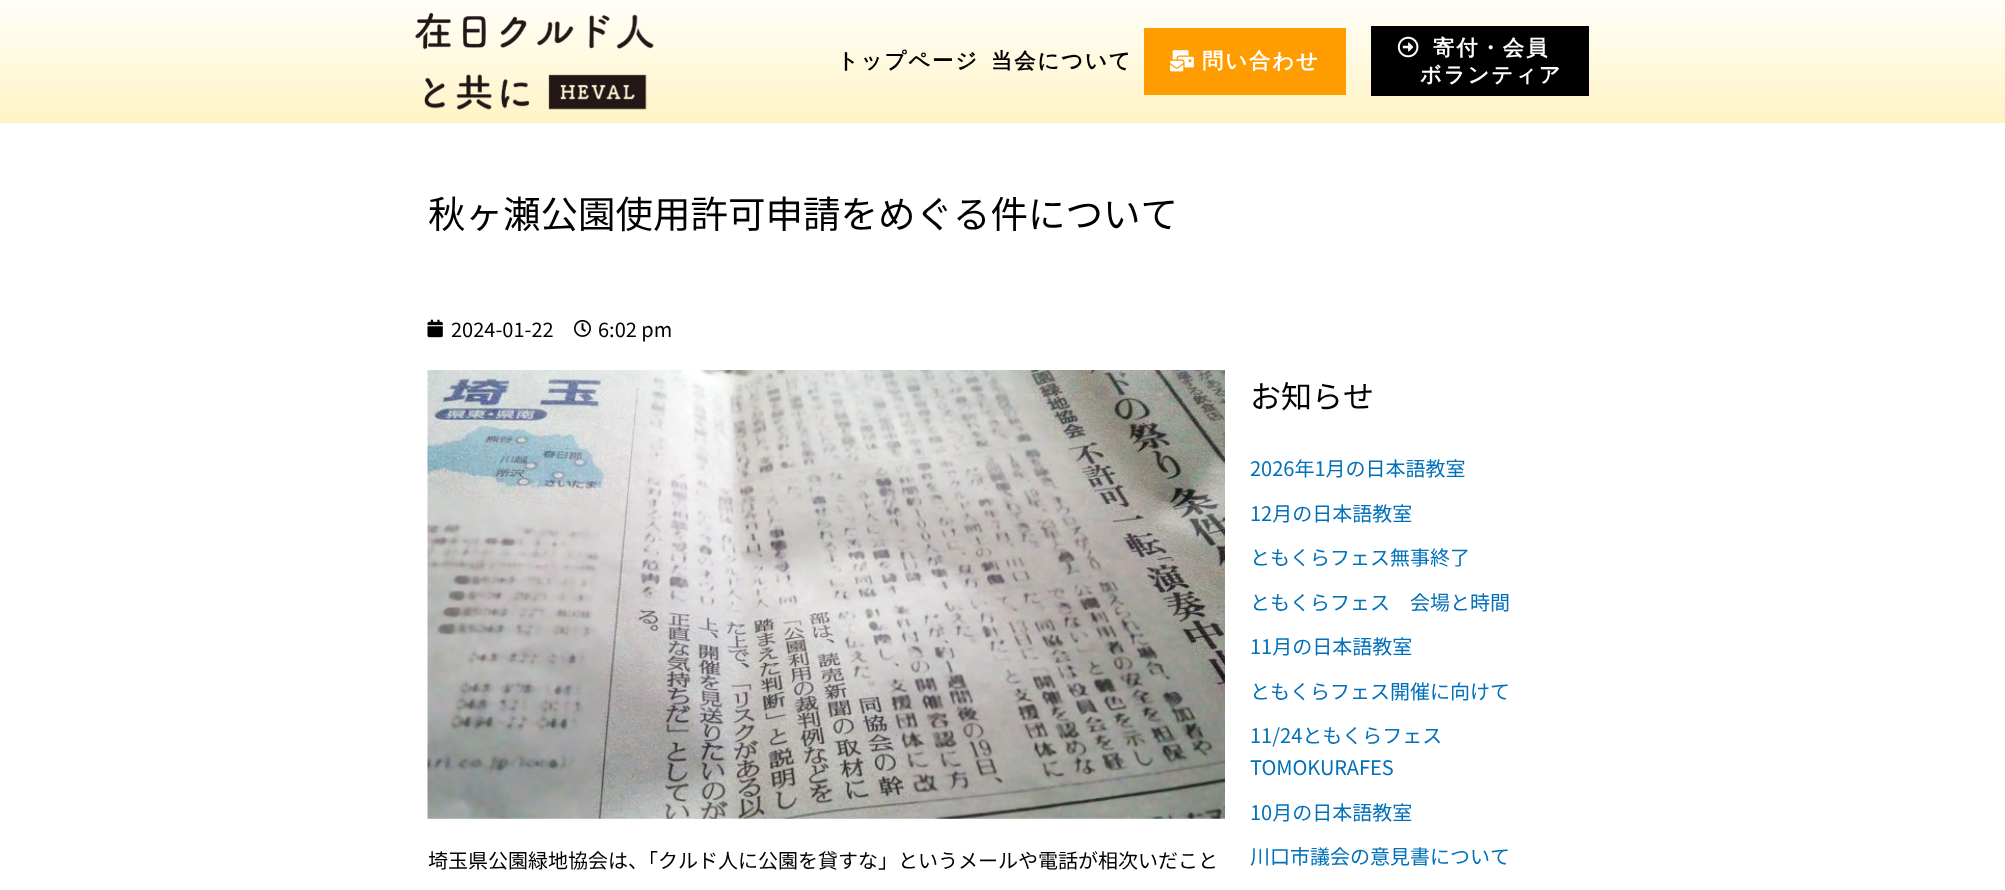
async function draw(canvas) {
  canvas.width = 2005;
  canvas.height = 890;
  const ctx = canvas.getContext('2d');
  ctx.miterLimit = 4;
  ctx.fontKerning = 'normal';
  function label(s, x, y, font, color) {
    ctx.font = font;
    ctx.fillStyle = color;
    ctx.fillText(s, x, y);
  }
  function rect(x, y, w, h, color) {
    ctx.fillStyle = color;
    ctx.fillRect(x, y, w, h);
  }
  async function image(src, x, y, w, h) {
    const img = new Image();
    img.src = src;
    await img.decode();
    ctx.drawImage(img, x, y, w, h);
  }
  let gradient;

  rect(0, 0, 2005, 890, '#fff');
  gradient = ctx.createLinearGradient(1003, 0, 1003, 123);
  gradient.addColorStop(0, '#fffff9');
  gradient.addColorStop(1, '#fff3c5');
  ctx.fillStyle = gradient;
  ctx.fillRect(0, 0, 2005, 123);
  await image('assets/img1.png', 415, 12, 239, 98);
  ctx.letterSpacing = '2px';
  label('トップページ', 837, 68, 'bold 21.25px WenQuanYi Zen Hei', '#000');
  label('当会について', 991, 68, 'bold 21.25px WenQuanYi Zen Hei', '#000');
  rect(1144, 28, 202, 67, '#ff9c00');
  await image('assets/img2.png', 1170, 50, 24, 22);
  label('問い合わせ', 1202, 68, 'bold 21.25px WenQuanYi Zen Hei', '#fff');
  rect(1371, 26, 218, 70, '#000');
  await image('assets/img3.png', 1397, 36, 22, 22);
  label('寄付・会員', 1433, 55, 'bold 21.25px WenQuanYi Zen Hei', '#fff');
  label('ボランティア', 1420, 82, 'bold 21.25px WenQuanYi Zen Hei', '#fff');
  ctx.letterSpacing = '0px';
  label('秋ヶ瀬公園使用許可申請をめぐる件について', 428, 228, '100 37.5px Noto Sans JP', '#000');
  await image('assets/img4.png', 427, 319, 16, 19);
  label('2024-01-22', 451, 337, '100 20px Noto Sans JP', '#000');
  await image('assets/img5.png', 574, 320, 17, 17);
  label('6:02 pm', 598, 337, '100 20px Noto Sans JP', '#000');
  await image('assets/img6.png', 427, 370, 798, 449);
  label('埼玉県公園緑地協会は、「クルド人に公園を貸すな」というメールや電話が相次いだこと', 428, 868, '100 20px Noto Sans JP', '#000');
  label('お知らせ', 1250, 408, '100 31px Noto Sans JP', '#000');
  label('2026年1月の日本語教室', 1250, 476, '100 20px Noto Sans JP', '#0170b9');
  label('12月の日本語教室', 1250, 521, '100 20px Noto Sans JP', '#0170b9');
  label('ともくらフェス無事終了', 1250, 565, '100 20px Noto Sans JP', '#0170b9');
  label('ともくらフェス　会場と時間', 1250, 610, '100 20px Noto Sans JP', '#0170b9');
  label('11月の日本語教室', 1250, 654, '100 20px Noto Sans JP', '#0170b9');
  label('ともくらフェス開催に向けて', 1250, 699, '100 20px Noto Sans JP', '#0170b9');
  label('11/24ともくらフェス', 1250, 743, '100 20px Noto Sans JP', '#0170b9');
  label('TOMOKURAFES', 1250, 775, '100 20px Noto Sans JP', '#0170b9');
  label('10月の日本語教室', 1250, 820, '100 20px Noto Sans JP', '#0170b9');
  label('川口市議会の意見書について', 1250, 864, '100 20px Noto Sans JP', '#0170b9');
}

draw(document.querySelector('canvas'));
